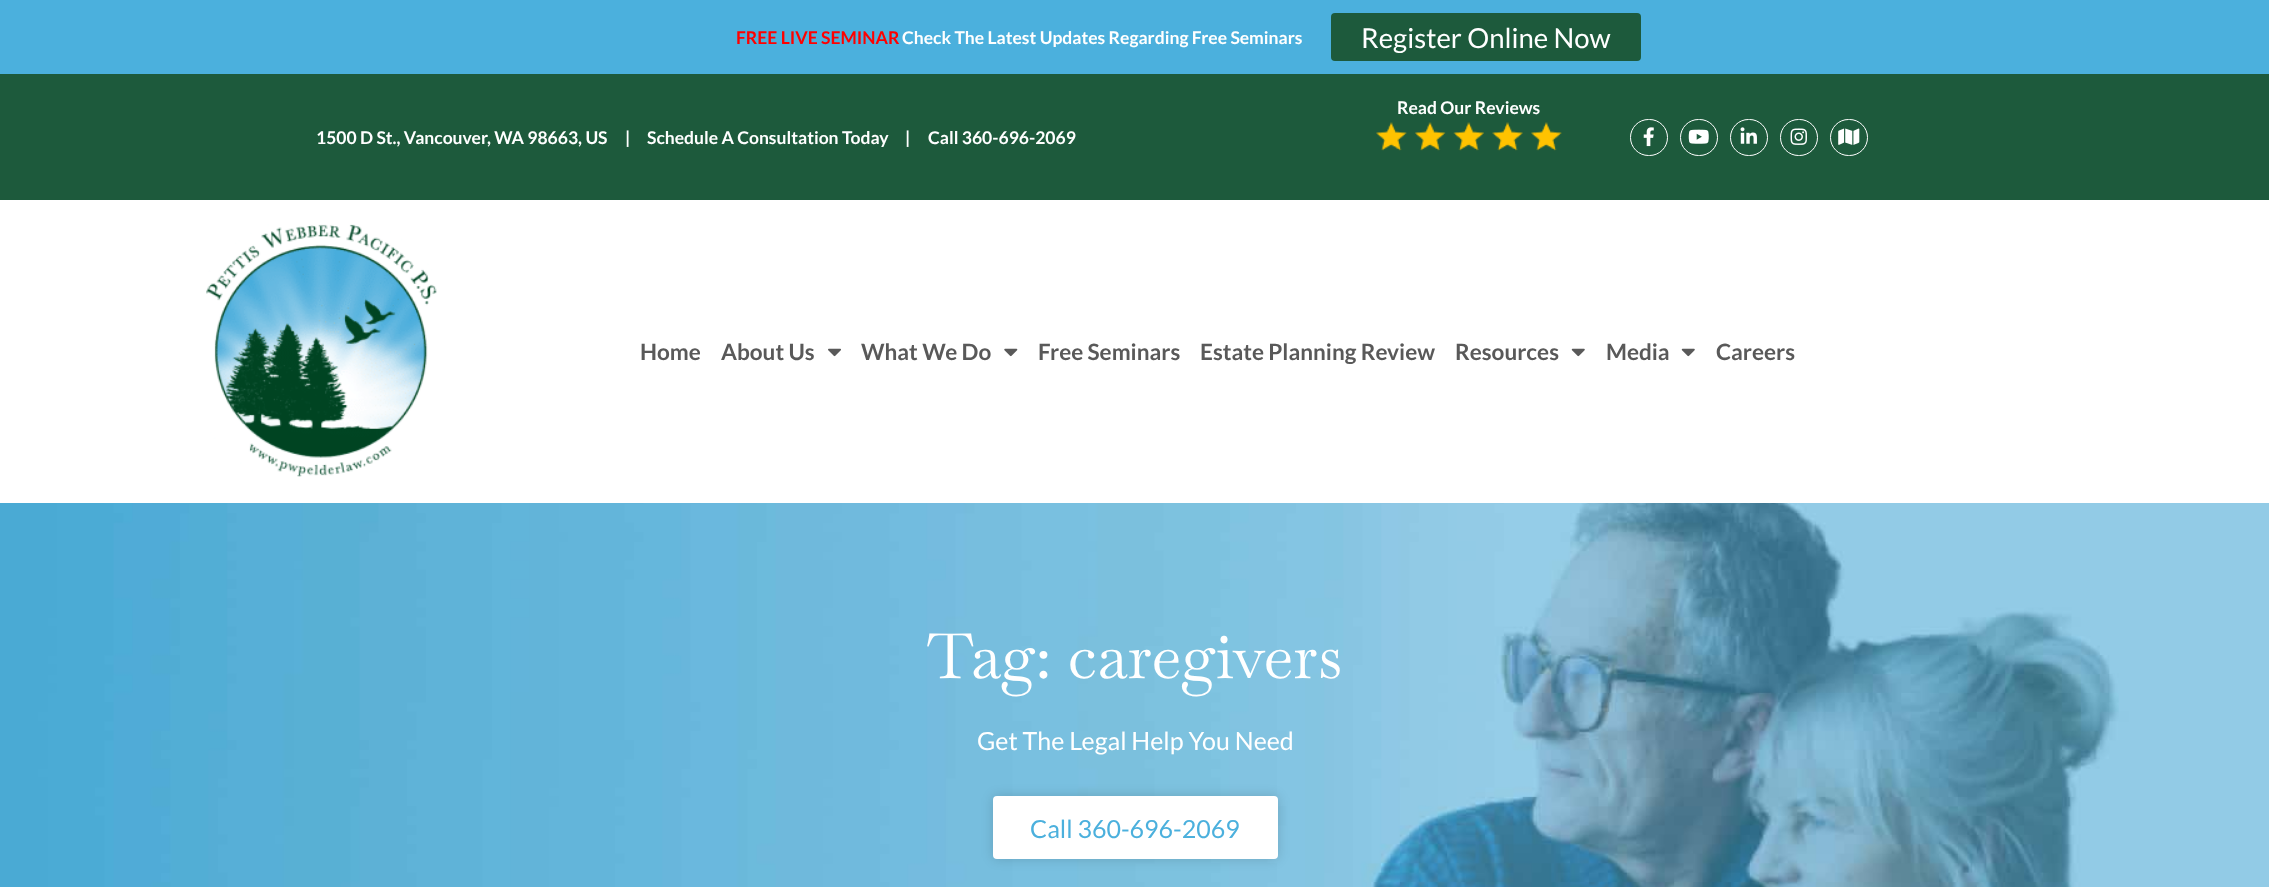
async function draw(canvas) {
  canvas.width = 2269;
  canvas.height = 887;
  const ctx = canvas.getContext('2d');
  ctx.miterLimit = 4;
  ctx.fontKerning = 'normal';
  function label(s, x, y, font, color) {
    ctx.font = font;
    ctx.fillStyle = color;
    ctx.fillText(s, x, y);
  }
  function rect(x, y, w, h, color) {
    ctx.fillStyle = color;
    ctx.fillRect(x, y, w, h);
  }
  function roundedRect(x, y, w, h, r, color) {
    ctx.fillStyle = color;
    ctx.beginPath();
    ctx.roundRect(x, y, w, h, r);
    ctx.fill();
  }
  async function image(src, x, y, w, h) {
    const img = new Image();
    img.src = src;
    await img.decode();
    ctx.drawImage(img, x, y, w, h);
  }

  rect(0, 0, 2269, 887, '#4bb0dd');
  label('FREE LIVE SEMINAR', 736, 44, 'bold 17.5px Lato', '#f00');
  label('Check The Latest Updates Regarding Free Seminars', 902, 44, 'bold 17.5px Lato', '#fff');
  roundedRect(1331, 13, 310, 48, 4, '#1d5a3c');
  label('Register Online Now', 1361, 48, '27.5px Lato', '#fff');
  rect(0, 74, 2269, 126, '#1d5a3c');
  label('Read Our Reviews', 1397, 114, 'bold 17.5px Lato', '#fff');
  await image('assets/img1.png', 1376, 122, 186, 29);
  ctx.beginPath();
  ctx.roundRect(1630.5, 119.5, 37, 36, 18);
  ctx.strokeStyle = '#fff';
  ctx.stroke();
  await image('assets/img2.png', 1643, 127, 11, 20);
  ctx.beginPath();
  ctx.roundRect(1680.5, 119.5, 37, 36, 18);
  ctx.stroke();
  await image('assets/img3.png', 1688, 129, 21, 15);
  ctx.beginPath();
  ctx.roundRect(1730.5, 119.5, 37, 36, 18);
  ctx.stroke();
  await image('assets/img4.png', 1740, 127, 17, 17);
  ctx.beginPath();
  ctx.roundRect(1780.5, 119.5, 37, 36, 18);
  ctx.stroke();
  await image('assets/img5.png', 1790, 128, 17, 17);
  ctx.beginPath();
  ctx.roundRect(1830.5, 119.5, 37, 36, 18);
  ctx.stroke();
  await image('assets/img6.png', 1838, 128, 22, 17);
  label('1500 D St., Vancouver, WA 98663, US', 316, 144, 'bold 17.5px Lato', '#fff');
  label('|', 625, 144, 'bold 17.5px Lato', '#fff');
  label('Schedule A Consultation Today', 647, 144, 'bold 17.5px Lato', '#fff');
  label('|', 905, 144, 'bold 17.5px Lato', '#fff');
  label('Call 360-696-2069', 928, 144, 'bold 17.5px Lato', '#fff');
  rect(0, 200, 2269, 303, '#fff');
  await image('assets/img7.png', 206, 224, 231, 253);
  label('Home', 640, 360, 'bold 22.5px Lato', '#595959');
  label('About Us', 721, 360, 'bold 22.5px Lato', '#595959');
  await image('assets/img8.png', 828, 348, 13, 9);
  label('What We Do', 861, 360, 'bold 22.5px Lato', '#595959');
  await image('assets/img9.png', 1004, 348, 14, 9);
  label('Free Seminars', 1038, 360, 'bold 22.5px Lato', '#595959');
  label('Estate Planning Review', 1200, 360, 'bold 22.5px Lato', '#595959');
  label('Resources', 1455, 360, 'bold 22.5px Lato', '#595959');
  await image('assets/img10.png', 1571, 348, 14, 9);
  label('Media', 1606, 360, 'bold 22.5px Lato', '#595959');
  await image('assets/img10.png', 1681, 348, 14, 9);
  label('Careers', 1716, 360, 'bold 22.5px Lato', '#595959');
  await image('assets/img11.png', 0, 503, 2269, 384);
  label('Tag: caregivers', 927, 678, '62.5px Baskervville', '#fff');
  label('Get The Legal Help You Need', 977, 750, '25px Lato', '#fff');
  ctx.fillStyle = '#00000026';
  ctx.filter = 'blur(6px)';
  ctx.beginPath();
  ctx.roundRect(993, 796, 285, 63, 4);
  ctx.fill();
  ctx.filter = 'none';
  roundedRect(993, 796, 285, 63, 4, '#fff');
  label('Call 360-696-2069', 1030, 838, '25px Lato', '#4bb0dd');
}

draw(document.querySelector('canvas'));
